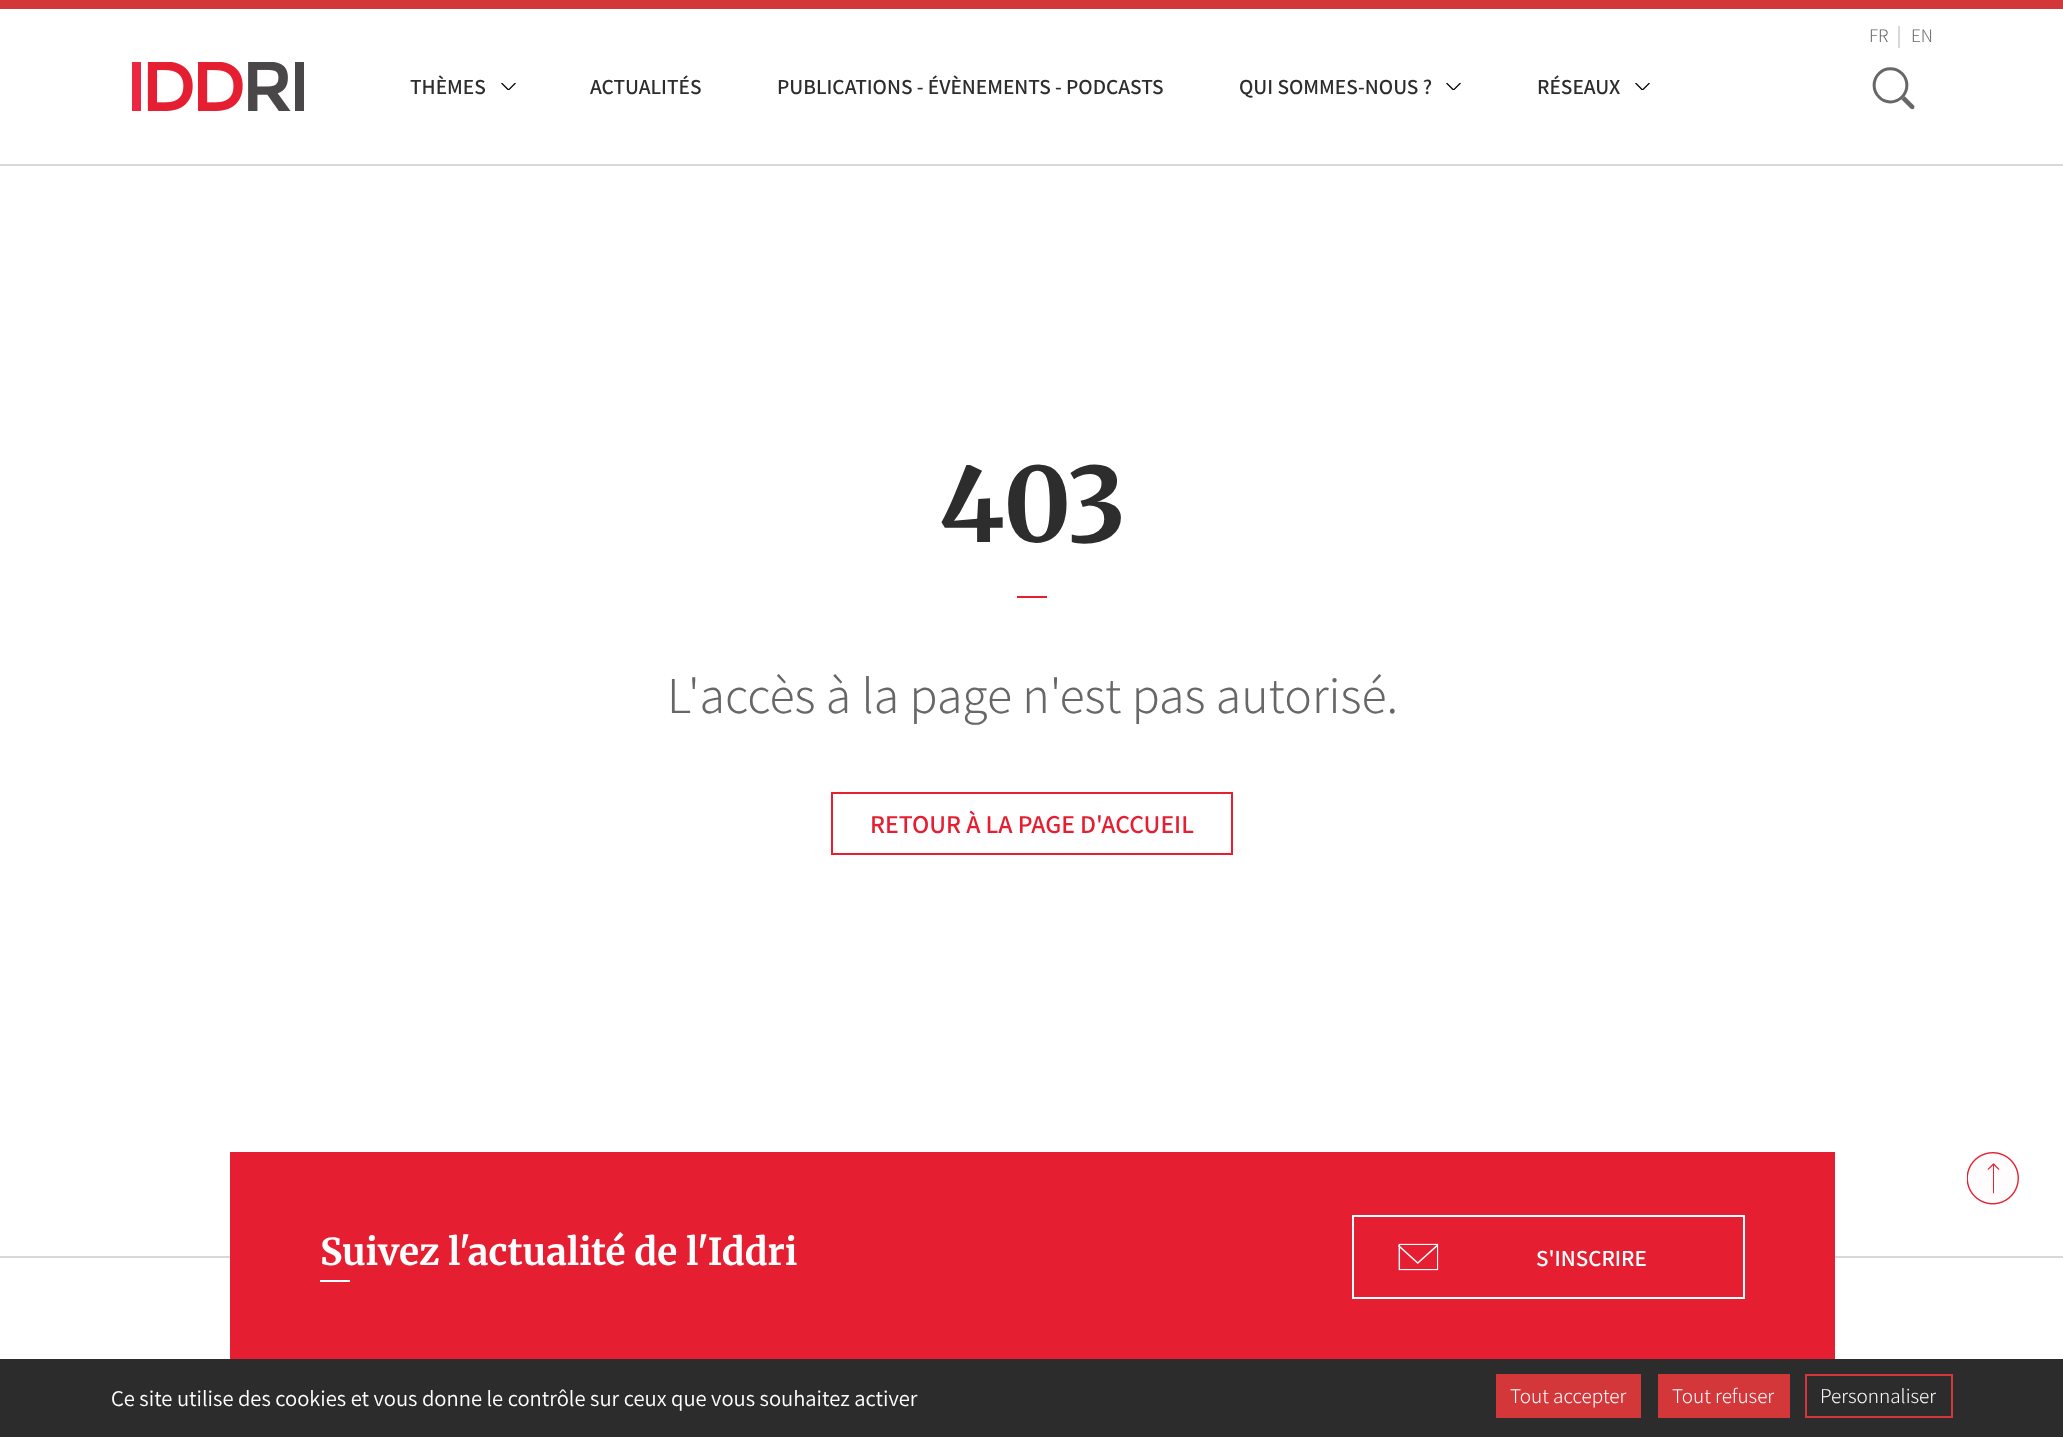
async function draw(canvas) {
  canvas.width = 2063;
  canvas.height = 1437;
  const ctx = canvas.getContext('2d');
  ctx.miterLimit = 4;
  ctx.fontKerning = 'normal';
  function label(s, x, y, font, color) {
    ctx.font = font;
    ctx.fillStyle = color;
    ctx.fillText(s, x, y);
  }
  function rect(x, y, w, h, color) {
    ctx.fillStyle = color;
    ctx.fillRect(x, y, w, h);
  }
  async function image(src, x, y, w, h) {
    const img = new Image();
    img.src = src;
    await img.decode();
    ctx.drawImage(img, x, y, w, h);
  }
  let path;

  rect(0, 0, 2063, 1437, '#fff');
  rect(0, 0, 2063, 9, '#d2373a');
  rect(0, 164, 2063, 2, '#d8d8d8');
  await image('assets/img1.png', 132, 62, 172, 49);
  label('FR', 1869, 42, '300 19px Assistant', '#676767');
  rect(1898, 26, 2, 22, '#d8d8d8');
  label('EN', 1911, 42, '300 19px Assistant', '#676767');
  await image('assets/img2.png', 501, 83, 15, 7);
  label('THÈMES', 410, 94, '600 21.4px Assistant', '#2d2d2d');
  label('ACTUALITÉS', 590, 94, '600 21.4px Assistant', '#2d2d2d');
  label('PUBLICATIONS - ÉVÈNEMENTS - PODCASTS', 777, 94, '600 21.4px Assistant', '#2d2d2d');
  await image('assets/img2.png', 1446, 83, 15, 7);
  label('QUI SOMMES-NOUS ?', 1239, 94, '600 21.4px Assistant', '#2d2d2d');
  await image('assets/img2.png', 1635, 83, 15, 7);
  label('RÉSEAUX', 1537, 94, '600 21.4px Assistant', '#2d2d2d');
  ctx.fillStyle = '#676767';
  path = new Path2D('M1886 84L1910.5 108.5C1911.5 109.5 1913 109.5 1914 108.5C1914.5 107.5 1914.5 106 1914 105.5L1889.5 81C1888.5 80 1887 80 1886 81C1885.5 82 1885.5 83.5 1886 84Z');
  ctx.fill(path);
  ctx.fillStyle = '#fff';
  path = new Path2D('M1877.5 98C1884.5 105 1896 105 1903 98C1910 91 1910 79.5 1903 72.5C1896 65.5 1884.5 65.5 1877.5 72.5C1870.5 79.5 1870.5 91 1877.5 98Z');
  ctx.fill(path);
  path = new Path2D('M1879 97C1885 103.5 1895.5 103.5 1902 97C1908.5 90.5 1908.5 80 1902 73.5C1895.5 67 1885 67 1879 73.5C1872.5 80 1872.5 90.5 1879 97Z');
  ctx.strokeStyle = '#676767';
  ctx.lineWidth = 3;
  ctx.stroke(path);
  label('403', 939, 542, '300 103px Merriweather', '#2d2d2d');
  rect(1017, 596, 30, 2, '#e51e31');
  label('L\'accès à la page n\'est pas autorisé.', 667, 713, '300 51.5px Assistant', '#676767');
  ctx.strokeStyle = '#e51e31';
  ctx.lineWidth = 2;
  ctx.strokeRect(832, 793, 400, 61);
  label('RETOUR À LA PAGE D\'ACCUEIL', 870, 833, '600 25.75px Assistant', '#e51e31');
  rect(0, 1256, 2063, 2, '#d8d8d8');
  await image('assets/img3.png', 1967, 1152, 52, 53);
  rect(230, 1152, 1605, 207, '#e51e31');
  label('Suivez l\'actualité de l\'Iddri', 320, 1265, '300 37.1px Merriweather', '#fff');
  rect(320, 1280, 30, 2, '#fff');
  ctx.strokeStyle = '#fff';
  ctx.strokeRect(1353, 1216, 391, 82);
  await image('assets/img4.png', 1398, 1243, 41, 28);
  label('S\'INSCRIRE', 1536, 1266, '600 23px Assistant', '#fff');
  rect(0, 1359, 2063, 78, '#2c2c2c');
  label('Ce site utilise des cookies et vous donne le contrôle sur ceux que vous souhaitez activer', 111, 1406, '22.5px Assistant', '#fff');
  rect(1496, 1374, 145, 44, '#d3373a');
  label('Tout accepter', 1510, 1403, '300 21px Assistant', '#fff');
  rect(1658, 1374, 132, 44, '#d3373a');
  label('Tout refuser', 1672, 1403, '300 21px Assistant', '#fff');
  ctx.strokeStyle = '#d3373a';
  ctx.strokeRect(1806, 1375, 146, 42);
  label('Personnaliser', 1820, 1403, '300 21px Assistant', '#fff');
}

draw(document.querySelector('canvas'));
